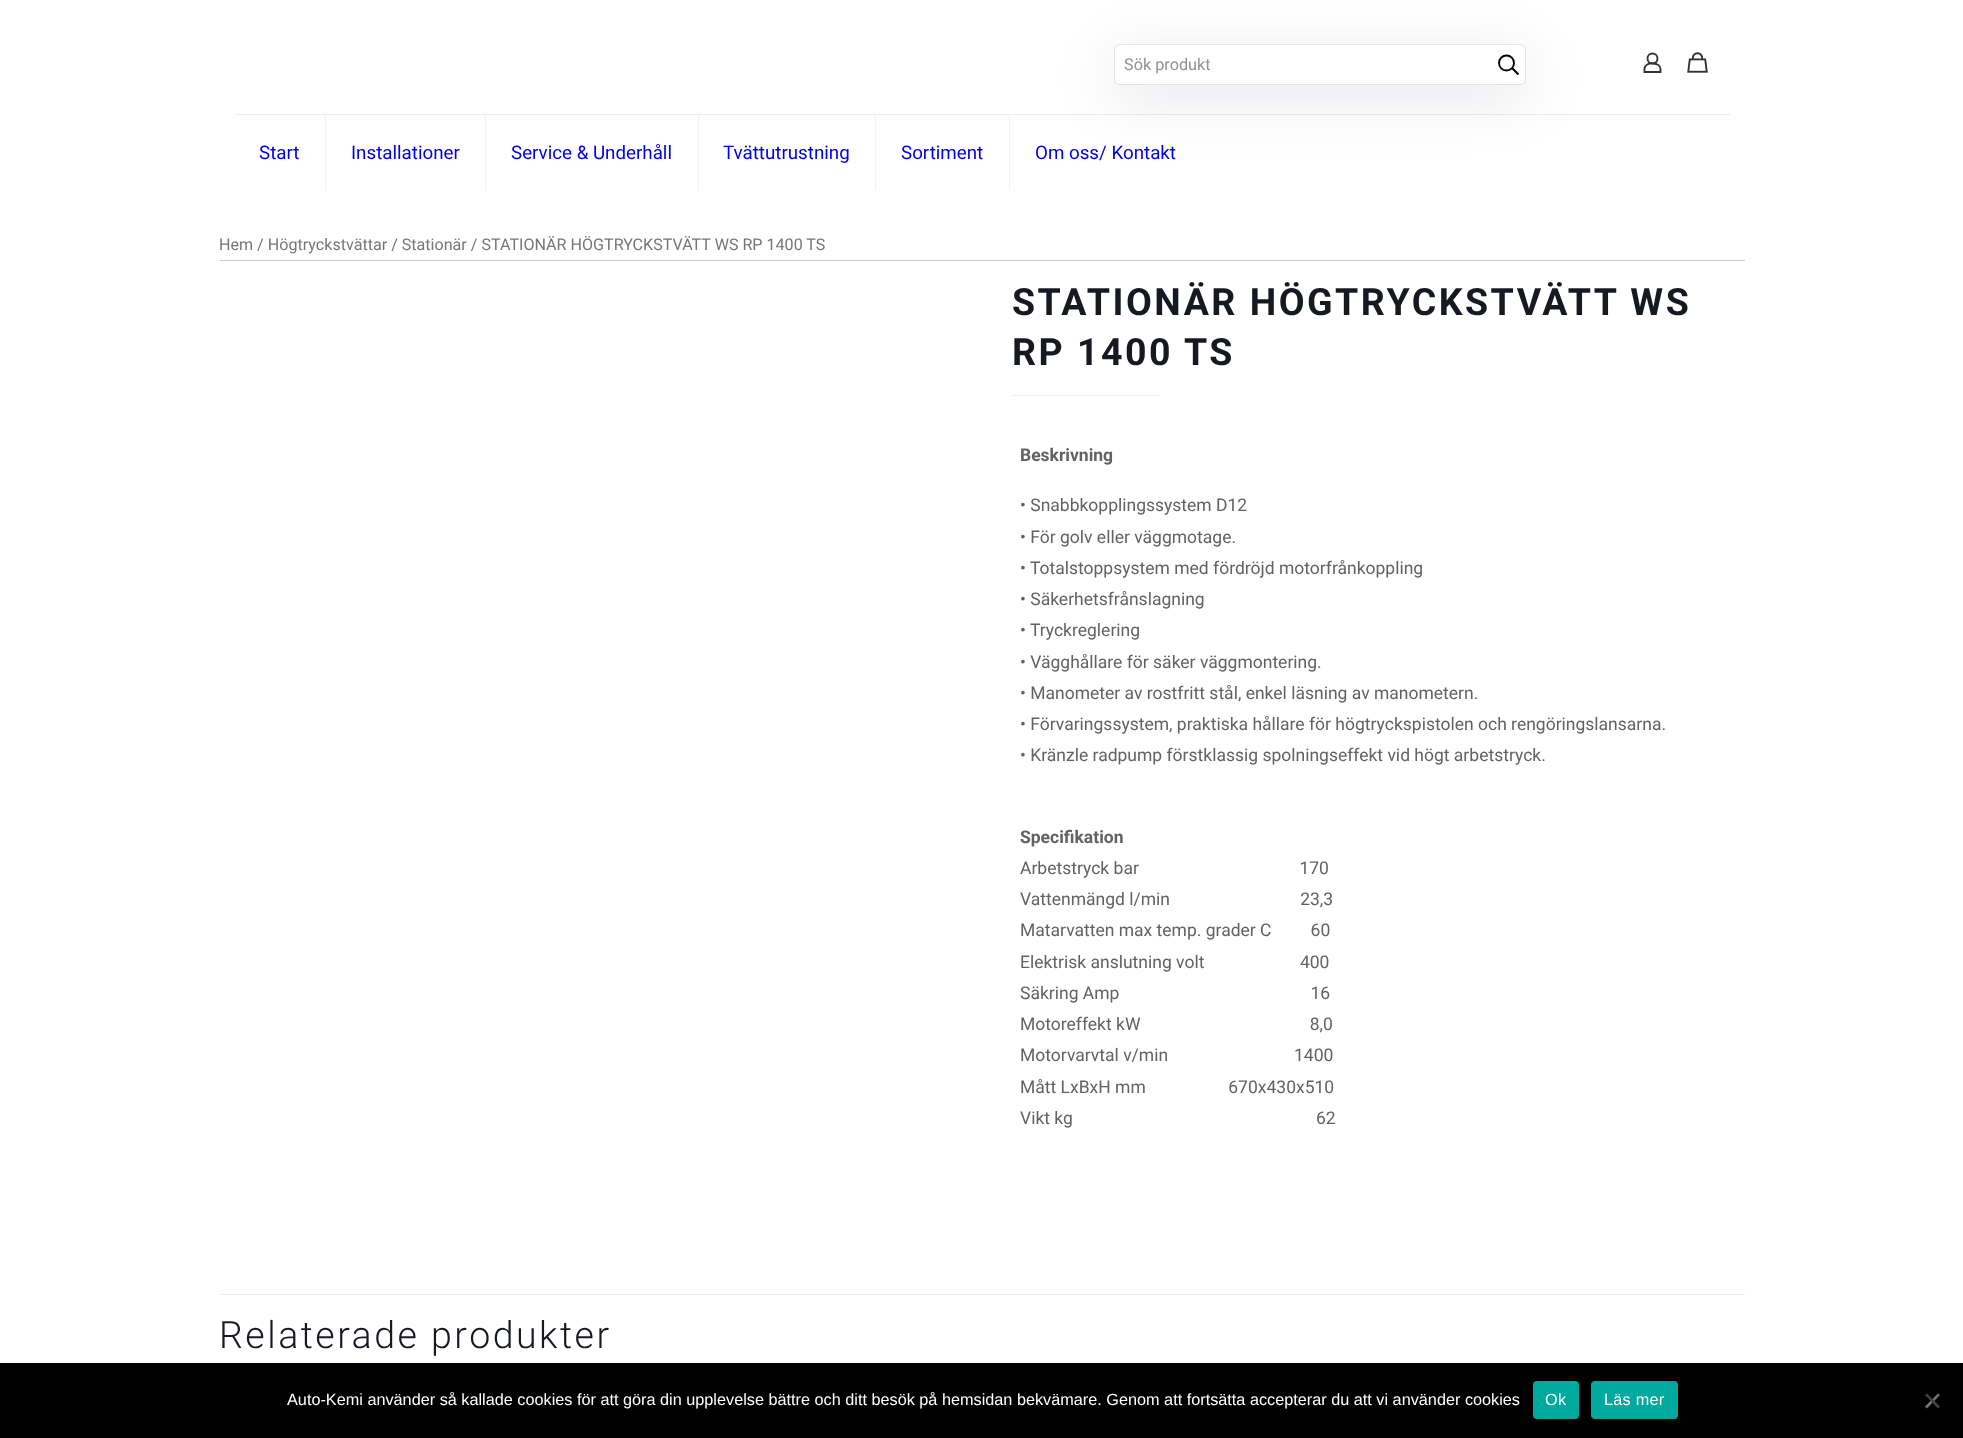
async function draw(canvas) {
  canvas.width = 1963;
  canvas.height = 1438;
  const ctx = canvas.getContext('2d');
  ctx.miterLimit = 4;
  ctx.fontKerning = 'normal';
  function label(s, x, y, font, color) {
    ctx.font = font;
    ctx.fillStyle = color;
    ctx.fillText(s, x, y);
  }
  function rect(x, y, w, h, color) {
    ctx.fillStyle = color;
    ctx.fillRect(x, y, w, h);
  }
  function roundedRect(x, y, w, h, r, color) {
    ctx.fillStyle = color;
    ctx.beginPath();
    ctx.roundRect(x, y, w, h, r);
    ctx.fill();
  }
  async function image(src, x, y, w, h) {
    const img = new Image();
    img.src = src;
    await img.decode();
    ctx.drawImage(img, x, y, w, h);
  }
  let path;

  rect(0, 0, 1963, 1438, '#fff');
  rect(235, 114, 1495, 1, '#ebebeb');
  ctx.save();
  path = new Path2D('M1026 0H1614V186H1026ZM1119 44H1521C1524 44 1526 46 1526 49V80C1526 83 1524 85 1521 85H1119C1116 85 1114 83 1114 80V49C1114 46 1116 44 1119 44Z');
  ctx.clip(path, 'evenodd');
  ctx.fillStyle = '#0107271a';
  ctx.filter = 'blur(29px)';
  ctx.beginPath();
  ctx.roundRect(1114, 56, 412, 42, 5);
  ctx.fill();
  ctx.filter = 'none';
  ctx.restore();
  ctx.beginPath();
  ctx.roundRect(1114.5, 44.5, 411, 40, 4.5);
  ctx.strokeStyle = '#e4e4e4';
  ctx.stroke();
  label('Sök produkt', 1124, 70, '16.25px Roboto', '#929292');
  ctx.beginPath();
  ctx.arc(1506.5, 63, 7.5, 0, 2 * Math.PI);
  ctx.strokeStyle = '#000';
  ctx.lineWidth = 1.9;
  ctx.stroke();
  path = new Path2D('M1512 68L1518.5 74.5');
  ctx.stroke(path);
  ctx.beginPath();
  ctx.arc(1652.5, 58.5, 5, 0, 2 * Math.PI);
  ctx.strokeStyle = '#333';
  ctx.stroke();
  path = new Path2D('M1660.5 69V72H1644.5V68C1646.5 61.5 1660.5 62 1660.5 69Z');
  ctx.stroke(path);
  await image('assets/img1.png', 1687, 52, 21, 21);
  rect(325, 115, 1, 75, '#f2f2f2');
  label('Start', 259, 159, '18.75px Roboto', '#00e');
  rect(485, 115, 1, 75, '#f2f2f2');
  label('Installationer', 351, 159, '18.75px Roboto', '#00e');
  rect(698, 115, 1, 75, '#f2f2f2');
  label('Service & Underhåll', 511, 159, '18.75px Roboto', '#00e');
  rect(875, 115, 1, 75, '#f2f2f2');
  label('Tvättutrustning', 723, 159, '18.75px Roboto', '#00e');
  rect(1009, 115, 1, 75, '#f2f2f2');
  label('Sortiment', 901, 159, '18.75px Roboto', '#00e');
  label('Om oss/ Kontakt', 1035, 159, '18.75px Roboto', '#00e');
  rect(220, 260, 1525, 1, '#ccc');
  label('Hem / Högtryckstvättar / Stationär / STATIONÄR HÖGTRYCKSTVÄTT WS RP 1400 TS', 219, 250, '16.1px Roboto', '#767676');
  ctx.letterSpacing = '2.5px';
  label('STATIONÄR HÖGTRYCKSTVÄTT WS', 1012, 315, 'bold 37.5px Roboto', '#161922');
  label('RP 1400 TS', 1012, 365, 'bold 37.5px Roboto', '#161922');
  rect(1013, 395, 146, 1, '#ebebeb');
  ctx.letterSpacing = '0px';
  label('Beskrivning', 1020, 461, 'bold 17.5px Roboto', '#626262');
  label('• Snabbkopplingssystem D12', 1020, 511, '17.5px Roboto', '#626262');
  label('• För golv eller väggmotage.', 1020, 543, '17.5px Roboto', '#626262');
  label('• Totalstoppsystem med fördröjd motorfrånkoppling', 1020, 574, '17.5px Roboto', '#626262');
  label('• Säkerhetsfrånslagning', 1020, 605, '17.5px Roboto', '#626262');
  label('• Tryckreglering', 1020, 636, '17.5px Roboto', '#626262');
  label('• Vägghållare för säker väggmontering.', 1020, 668, '17.5px Roboto', '#626262');
  label('• Manometer av rostfritt stål, enkel läsning av manometern.', 1020, 699, '17.5px Roboto', '#626262');
  label('• Förvaringssystem, praktiska hållare för högtryckspistolen och rengöringslansarna.', 1020, 730, '17.5px Roboto', '#626262');
  label('• Kränzle radpump förstklassig spolningseffekt vid högt arbetstryck.', 1020, 761, '17.5px Roboto', '#626262');
  label('Specifikation', 1020, 843, 'bold 17.5px Roboto', '#626262');
  label('Arbetstryck bar                                     170', 1020, 874, '17.5px Roboto', '#626262');
  label('Vattenmängd l/min                              23,3', 1020, 905, '17.5px Roboto', '#626262');
  label('Matarvatten max temp. grader C         60', 1020, 936, '17.5px Roboto', '#626262');
  label('Elektrisk anslutning volt                      400', 1020, 968, '17.5px Roboto', '#626262');
  label('Säkring Amp                                            16', 1020, 999, '17.5px Roboto', '#626262');
  label('Motoreffekt kW                                       8,0', 1020, 1030, '17.5px Roboto', '#626262');
  label('Motorvarvtal v/min                             1400', 1020, 1061, '17.5px Roboto', '#626262');
  label('Mått LxBxH mm                   670x430x510', 1020, 1093, '17.5px Roboto', '#626262');
  label('Vikt kg                                                        62', 1020, 1124, '17.5px Roboto', '#626262');
  rect(220, 1294, 1525, 1, '#ebebeb');
  ctx.letterSpacing = '2.5px';
  label('Relaterade produkter', 219, 1348, '300 37.5px Roboto', '#161922');
  rect(0, 1363, 1963, 75, '#000');
  ctx.letterSpacing = '0px';
  label('Auto-Kemi använder så kallade cookies för att göra din upplevelse bättre och ditt besök på hemsidan bekvämare. Genom att fortsätta accepterar du att vi använder cookies', 287, 1405, '16.25px Liberation Sans', '#fff');
  roundedRect(1533, 1381, 46, 38, 4, '#00a99d');
  ctx.letterSpacing = '0.25px';
  label('Ok', 1545, 1405, '16.25px Liberation Sans', '#fff');
  roundedRect(1591, 1381, 87, 38, 4, '#00a99d');
  label('Läs mer', 1604, 1405, '16.25px Liberation Sans', '#fff');
  ctx.fillStyle = '#757575';
  path = new Path2D('M1938 1393.5L1940 1395L1927 1408.5L1925 1406.5Z');
  ctx.fill(path);
  ctx.fillStyle = '#404040';
  path = new Path2D('M1925 1395L1927 1393.5L1940 1406.5L1938 1408.5Z');
  ctx.fill(path);
}

draw(document.querySelector('canvas'));
